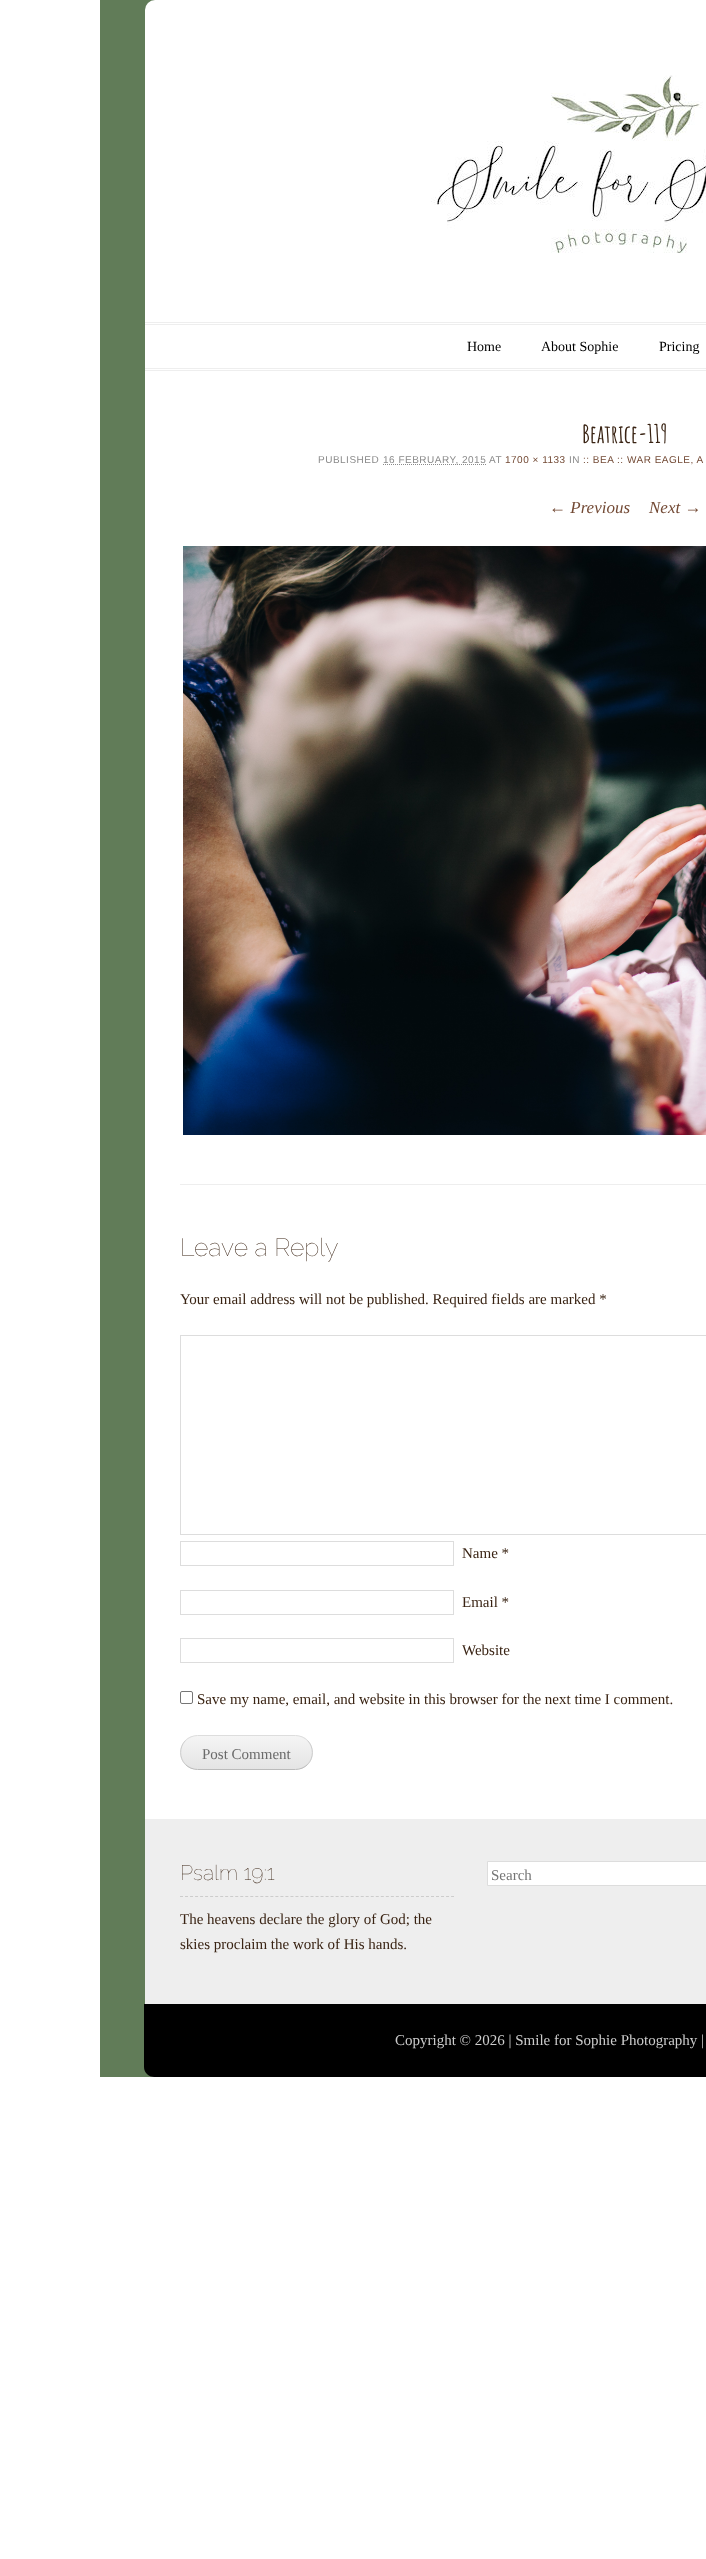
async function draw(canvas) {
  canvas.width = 706;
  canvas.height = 2559;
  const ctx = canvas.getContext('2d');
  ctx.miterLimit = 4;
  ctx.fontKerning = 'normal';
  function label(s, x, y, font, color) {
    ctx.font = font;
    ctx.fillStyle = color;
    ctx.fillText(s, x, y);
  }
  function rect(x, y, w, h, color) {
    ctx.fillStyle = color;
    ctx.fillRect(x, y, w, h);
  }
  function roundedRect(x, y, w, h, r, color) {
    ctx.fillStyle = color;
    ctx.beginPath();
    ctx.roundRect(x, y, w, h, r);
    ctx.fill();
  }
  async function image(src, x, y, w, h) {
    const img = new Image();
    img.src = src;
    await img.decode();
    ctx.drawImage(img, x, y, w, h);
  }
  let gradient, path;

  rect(0, 0, 706, 2559, '#fff');
  rect(100, 0, 55, 2077, '#617c58');
  roundedRect(145, 0, 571, 2077, 10, '#fff');
  await image('assets/img1.png', 431, 75, 275, 178);
  rect(145, 322, 561, 1, '#eee');
  rect(145, 324, 561, 1, '#eee');
  rect(145, 368, 561, 1, '#eee');
  rect(145, 370, 561, 1, '#eee');
  label('Home', 467, 351, '14px Liberation Serif', '#000');
  label('About Sophie', 541, 351, '14px Liberation Serif', '#000');
  label('Pricing', 659, 351, '14px Liberation Serif', '#000');
  rect(145, 1819, 561, 185, '#eee');
  label('Beatrice-119', 582, 443, 'bold 25px Amatic SC', '#392313');
  ctx.letterSpacing = '0.5px';
  label('PUBLISHED', 318, 463, '10px Liberation Sans', '#8a8a8a');
  path = new Path2D('M383 464.5H486');
  ctx.strokeStyle = '#8a8a8a';
  ctx.setLineDash([1, 1]);
  ctx.stroke(path);
  label('16 FEBRUARY, 2015', 383, 463, '10px Liberation Sans', '#8a8a8a');
  label('AT', 489, 463, '10px Liberation Sans', '#8a8a8a');
  label('1700 × 1133', 505, 463, '10px Liberation Sans', '#734a35');
  label('IN', 569, 463, '10px Liberation Sans', '#8a8a8a');
  label(':: BEA :: WAR EAGLE, A', 583, 463, '10px Liberation Sans', '#734a35');
  ctx.letterSpacing = '0px';
  label('← Previous', 549, 513, 'italic 17px Liberation Serif', '#734a35');
  label('Next →', 649, 513, 'italic 17px Liberation Serif', '#734a35');
  await image('assets/img2.png', 183, 546, 523, 589);
  rect(180, 1184, 526, 1, '#eee');
  label('Leave a Reply', 180, 1256, '100 25px Raleway', '#392313');
  label('Your email address will not be published. Required fields are marked *', 180, 1304, '15px Liberation Serif', '#392313');
  ctx.strokeStyle = '#ddd';
  ctx.setLineDash([]);
  ctx.strokeRect(180.5, 1335.5, 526, 199);
  ctx.strokeRect(180.5, 1541.5, 273, 24);
  label('Name *', 462, 1558, '15px Liberation Serif', '#392313');
  ctx.strokeRect(180.5, 1590.5, 273, 24);
  label('Email *', 462, 1607, '15px Liberation Serif', '#392313');
  ctx.strokeRect(180.5, 1638.5, 273, 24);
  label('Website', 462, 1655, '15px Liberation Serif', '#392313');
  ctx.beginPath();
  ctx.roundRect(180.5, 1691.5, 12, 12, 1.5);
  ctx.strokeStyle = '#767676';
  ctx.stroke();
  label('Save my name, email, and website in this browser for the next time I comment.', 197, 1704, '15px Liberation Serif', '#392313');
  ctx.save();
  ctx.beginPath();
  ctx.roundRect(180, 1735, 133, 35, 17.5);
  ctx.clip();
  gradient = ctx.createLinearGradient(247, 1736, 247, 1769);
  gradient.addColorStop(0, '#f5f5f5');
  gradient.addColorStop(1, '#e4e4e4');
  ctx.fillStyle = gradient;
  ctx.fillRect(180, 1736, 133, 33);
  ctx.restore();
  path = new Path2D('M185.5 1740.5C188.5 1737.5 193 1735.5 197.5 1735.5H295.5C300 1735.5 304.5 1737.5 307.5 1740.5');
  ctx.strokeStyle = '#ddd';
  ctx.stroke(path);
  path = new Path2D('M307.5 1740.5C314 1747 314 1758 307.5 1764.5');
  ctx.strokeStyle = '#ccc';
  ctx.stroke(path);
  path = new Path2D('M307.5 1764.5C304.5 1767.5 300 1769.5 295.5 1769.5H197.5C193 1769.5 188.5 1767.5 185.5 1764.5');
  ctx.strokeStyle = '#bbb';
  ctx.stroke(path);
  path = new Path2D('M185.5 1764.5C179 1758 179 1747 185.5 1740.5');
  ctx.strokeStyle = '#ccc';
  ctx.stroke(path);
  label('Post Comment', 202, 1759, '15px Liberation Serif', '#6a6a6a');
  path = new Path2D('M180 1896.5H454');
  ctx.setLineDash([3, 2.02]);
  ctx.stroke(path);
  label('Psalm 19:1', 180, 1880, '100 21px Raleway', '#392313');
  label('The heavens declare the glory of God; the', 180, 1924, '15px Liberation Serif', '#392313');
  label('skies proclaim the work of His hands.', 180, 1949, '15px Liberation Serif', '#392313');
  ctx.fillStyle = '#fff';
  ctx.beginPath();
  ctx.rect(487.5, 1861.5, 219, 24);
  ctx.fill();
  ctx.strokeStyle = '#ddd';
  ctx.setLineDash([]);
  ctx.stroke();
  label('Search', 491, 1880, '15px Liberation Serif', '#757575');
  ctx.fillStyle = '#000';
  path = new Path2D('M144 2004H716V2067C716 2072.5 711.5 2077 706 2077H154C148.5 2077 144 2072.5 144 2067Z');
  ctx.fill(path);
  label('Copyright © 2026 | Smile for Sophie Photography |', 395, 2045, '15px Liberation Serif', '#ccc');
}

draw(document.querySelector('canvas'));
